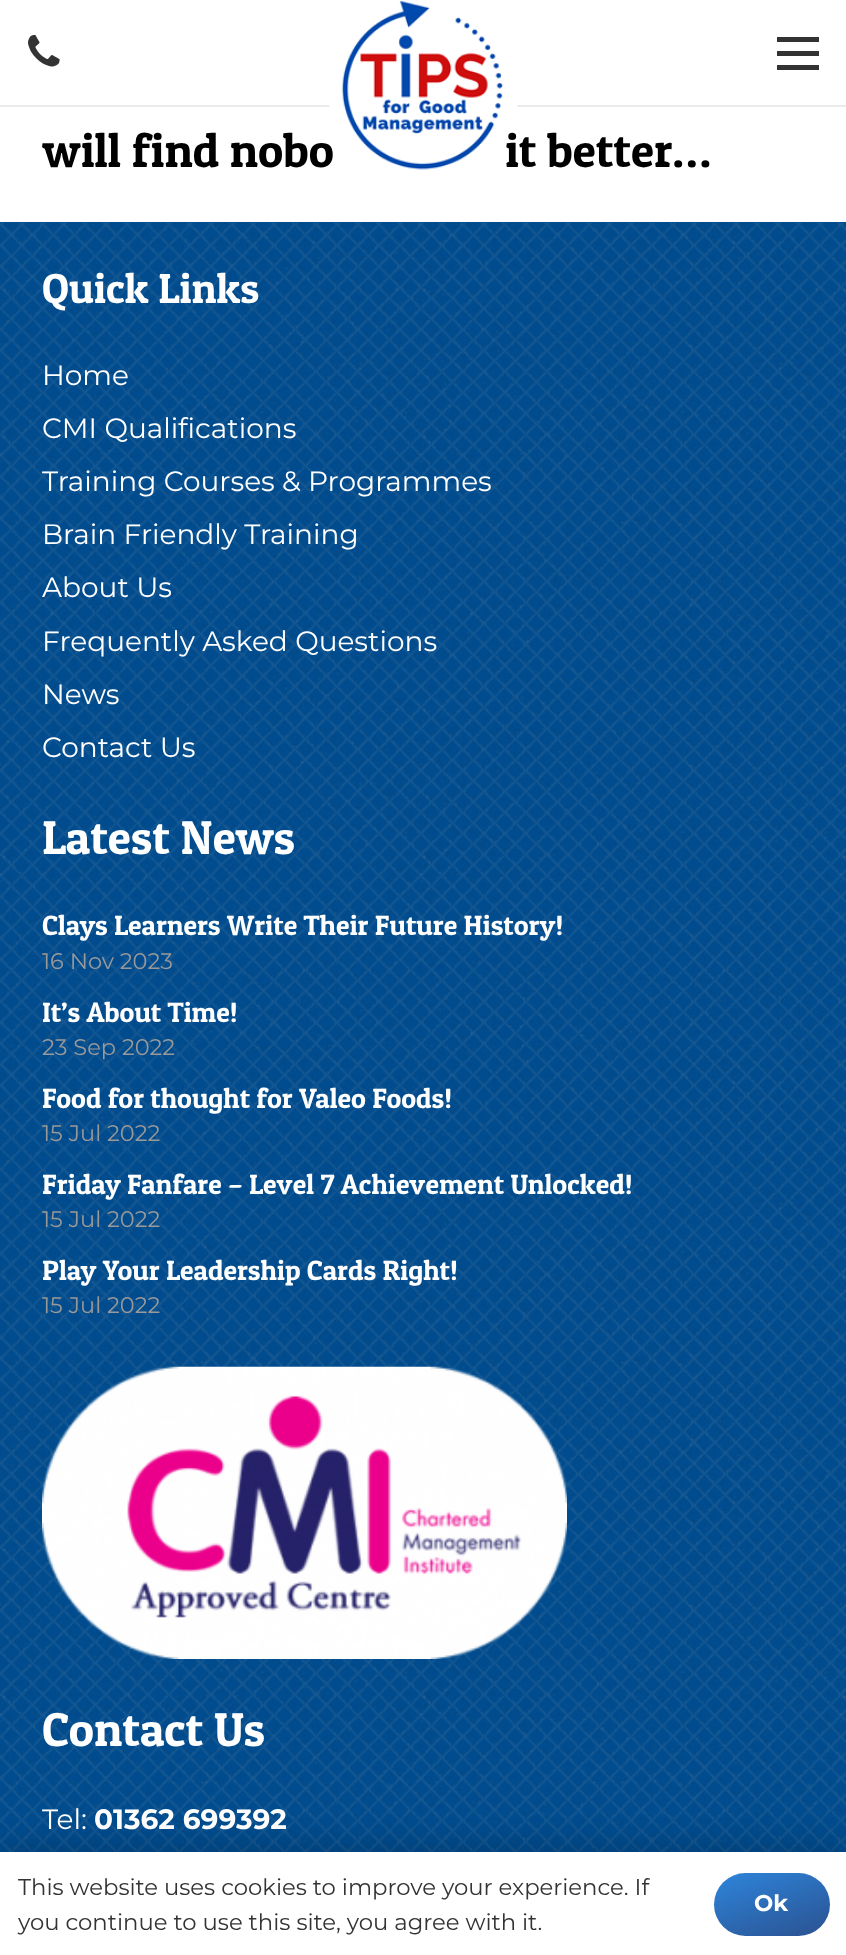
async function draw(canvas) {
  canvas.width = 846;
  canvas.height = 1955;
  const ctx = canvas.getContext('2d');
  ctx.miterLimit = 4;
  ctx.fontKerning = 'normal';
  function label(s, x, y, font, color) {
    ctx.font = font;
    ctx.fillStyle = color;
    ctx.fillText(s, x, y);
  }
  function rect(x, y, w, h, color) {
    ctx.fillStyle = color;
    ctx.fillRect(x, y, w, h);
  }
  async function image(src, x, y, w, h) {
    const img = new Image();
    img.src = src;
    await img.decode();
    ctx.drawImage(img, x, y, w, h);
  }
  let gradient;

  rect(0, 0, 846, 1955, '#fff');
  rect(0, 105, 846, 2, '#00000014');
  await image('assets/img1.png', 28, 34, 32, 33);
  label('will find nobo', 42, 167, '47.5px Patua One', '#000');
  label('it better…', 505, 167, '47.5px Patua One', '#000');
  await image('assets/img2.png', 329, 0, 190, 171);
  rect(777, 51, 42, 5, '#333');
  rect(777, 37, 42, 5, '#333');
  rect(777, 65, 42, 5, '#333');
  rect(0, 222, 846, 1630, '#004c8e');
  await image('assets/img3.png', 0, 222, 846, 1630);
  label('Quick Links', 42, 303, '42px Patua One', '#fff');
  label('Home', 42, 385, '28px Montserrat', '#fff');
  label('CMI Qualifications', 42, 438, '28px Montserrat', '#fff');
  label('Training Courses & Programmes', 42, 491, '28px Montserrat', '#fff');
  label('Brain Friendly Training', 42, 544, '28px Montserrat', '#fff');
  label('About Us', 42, 597, '28px Montserrat', '#fff');
  label('Frequently Asked Questions', 42, 651, '28px Montserrat', '#fff');
  label('News', 42, 704, '28px Montserrat', '#fff');
  label('Contact Us', 42, 757, '28px Montserrat', '#fff');
  label('Latest News', 42, 854, '47.5px Patua One', '#fff');
  label('Clays Learners Write Their Future History!', 42, 935, '28px Patua One', '#fff');
  label('16 Nov 2023', 42, 969, '22.5px Montserrat', '#999');
  label('It’s About Time!', 42, 1022, '28px Patua One', '#fff');
  label('23 Sep 2022', 42, 1055, '22.5px Montserrat', '#999');
  label('Food for thought for Valeo Foods!', 42, 1108, '28px Patua One', '#fff');
  label('15 Jul 2022', 42, 1141, '22.5px Montserrat', '#999');
  label('Friday Fanfare – Level 7 Achievement Unlocked!', 42, 1194, '28px Patua One', '#fff');
  label('15 Jul 2022', 42, 1227, '22.5px Montserrat', '#999');
  label('Play Your Leadership Cards Right!', 42, 1280, '28px Patua One', '#fff');
  label('15 Jul 2022', 42, 1313, '22.5px Montserrat', '#999');
  await image('assets/img4.png', 42, 1366, 525, 293);
  label('Contact Us', 42, 1746, '47.5px Patua One', '#fff');
  label('Tel:', 42, 1829, '28px Montserrat', '#fff');
  label('01362 699392', 94, 1829, 'bold 28px Montserrat', '#fff');
  ctx.fillStyle = '#00000026';
  ctx.filter = 'blur(13px)';
  ctx.beginPath();
  ctx.rect(0, 1843, 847, 105);
  ctx.fill();
  ctx.filter = 'none';
  rect(0, 1852, 846, 103, '#fff');
  label('This website uses cookies to improve your experience. If', 18, 1895, '22.75px Montserrat', '#333');
  label('you continue to use this site, you agree with it.', 18, 1930, '22.75px Montserrat', '#333');
  gradient = ctx.createLinearGradient(755, 1858, 789, 1950);
  gradient.addColorStop(0, '#2e85db');
  gradient.addColorStop(1, '#2a5291');
  ctx.fillStyle = gradient;
  ctx.beginPath();
  ctx.roundRect(714, 1873, 116, 63, 31.5);
  ctx.fill();
  label('Ok', 754, 1911, 'bold 22.75px Montserrat', '#fff');
}

draw(document.querySelector('canvas'));
